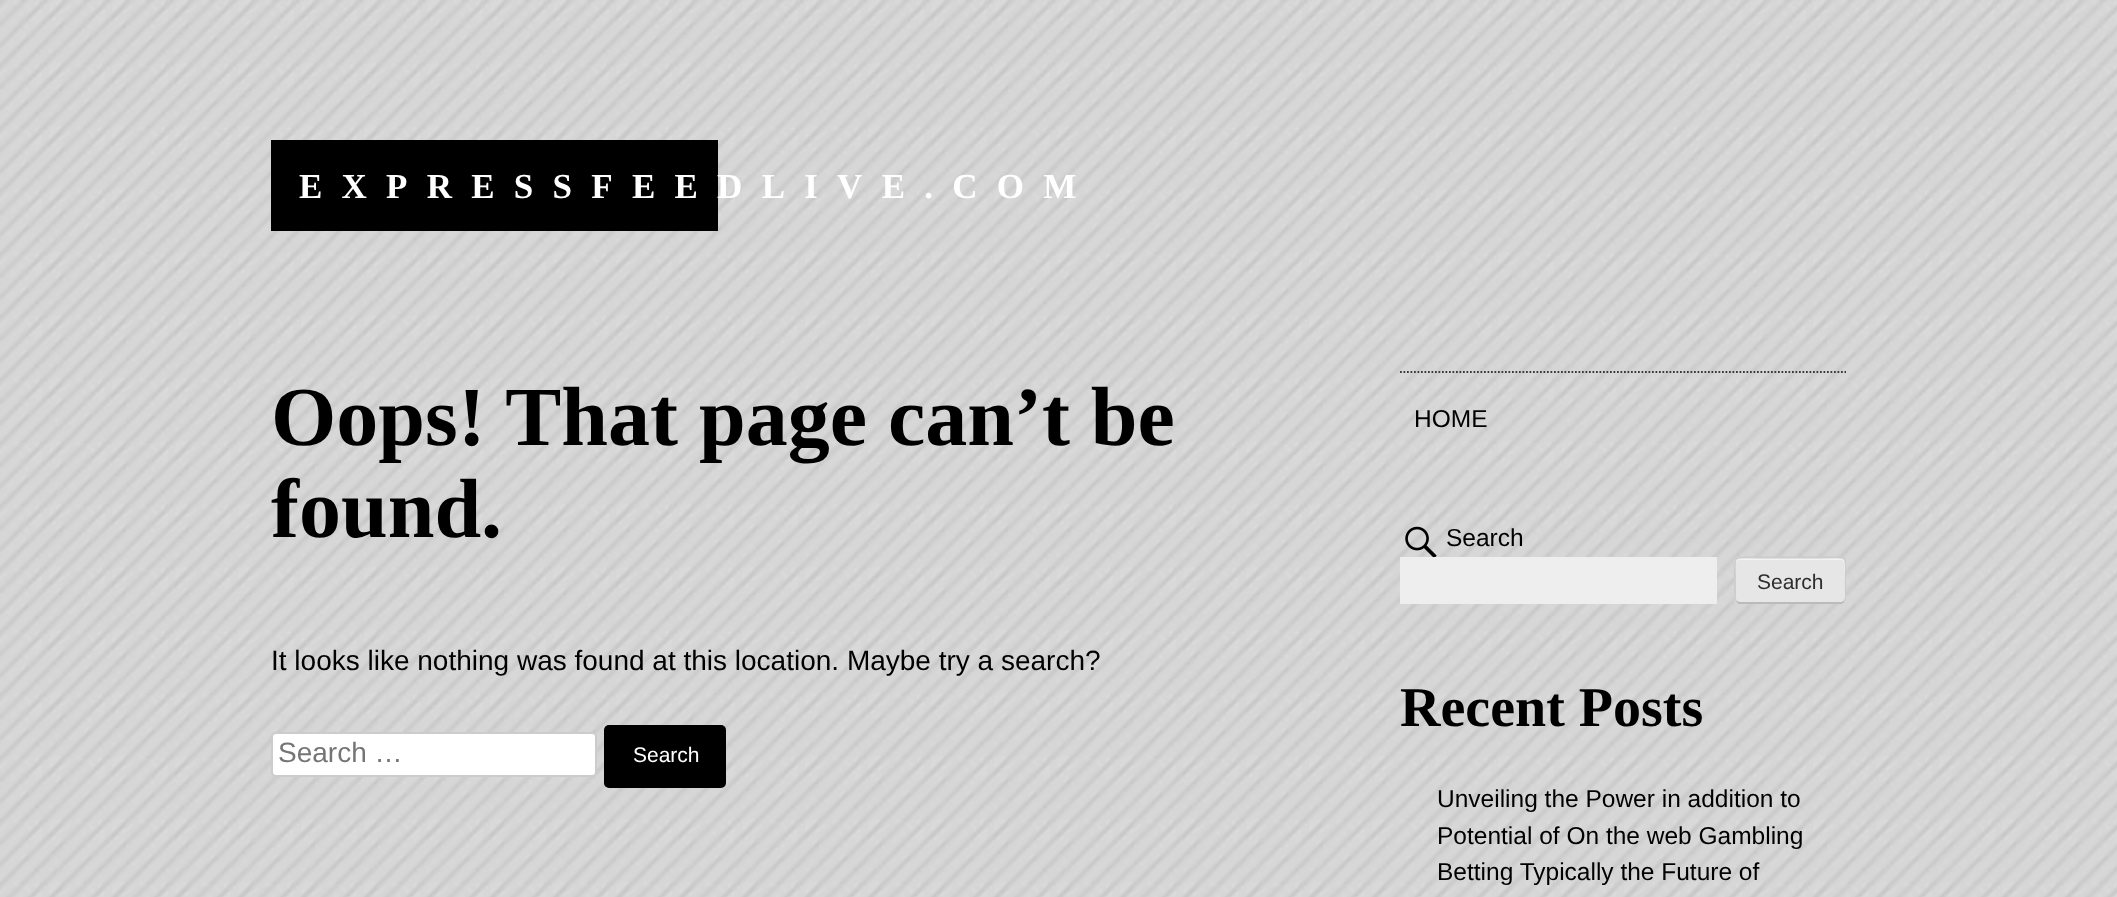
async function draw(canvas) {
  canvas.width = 2117;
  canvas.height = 897;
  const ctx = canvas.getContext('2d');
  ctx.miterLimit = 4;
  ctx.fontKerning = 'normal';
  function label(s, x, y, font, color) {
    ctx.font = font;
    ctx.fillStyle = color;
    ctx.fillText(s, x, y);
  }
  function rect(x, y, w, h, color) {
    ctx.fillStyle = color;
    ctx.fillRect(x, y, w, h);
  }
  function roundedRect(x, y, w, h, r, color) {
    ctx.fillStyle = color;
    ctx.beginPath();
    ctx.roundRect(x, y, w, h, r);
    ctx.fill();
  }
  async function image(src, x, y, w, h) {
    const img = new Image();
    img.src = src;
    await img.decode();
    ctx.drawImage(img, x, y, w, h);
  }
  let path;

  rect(0, 0, 2117, 897, '#fff');
  await image('assets/img1.png', 0, 0, 2117, 897);
  rect(271, 140, 447, 91, '#000');
  ctx.letterSpacing = '19.25px';
  label('EXPRESSFEEDLIVE.COM', 299, 198, 'bold 35px Liberation Serif', '#fff');
  ctx.letterSpacing = '0px';
  label('Oops! That page can’t be', 271, 445, 'bold 84px Liberation Serif', '#000');
  label('found.', 271, 537, 'bold 84px Liberation Serif', '#000');
  label('It looks like nothing was found at this location. Maybe try a search?', 271, 670, '28px Liberation Sans', '#000');
  ctx.fillStyle = '#fff';
  ctx.beginPath();
  ctx.roundRect(272, 733, 324, 43, 4);
  ctx.fill();
  ctx.strokeStyle = '#ccc';
  ctx.lineWidth = 2;
  ctx.stroke();
  label('Search …', 278, 762, '28px Liberation Sans', '#757575');
  roundedRect(604, 725, 122, 63, 5, '#000');
  label('Search', 633, 762, '21px Liberation Sans', '#fff');
  path = new Path2D('M1400 372H1846');
  ctx.strokeStyle = '#393939';
  ctx.lineWidth = 1.8;
  ctx.setLineDash([1.75, 1.75]);
  ctx.stroke(path);
  label('HOME', 1414, 427, '24.5px Liberation Sans', '#000');
  await image('assets/img2.png', 1405, 526, 32, 31);
  label('Search', 1446, 546, '24.5px Liberation Sans', '#000');
  rect(1400, 557, 317, 47, '#eee');
  roundedRect(1734, 557, 112, 47, 5, '#e6e6e6');
  ctx.fillStyle = '#f3f3f3';
  path = new Path2D('M1740 560H1841C1845 560 1844 568 1844 570V601C1845 600 1845 599 1845 598V562C1845 560 1843 558 1841 558H1740C1738 558 1736 560 1736 562V564C1736 562 1738 560 1740 560Z');
  ctx.fill(path);
  path = new Path2D('M1844 601.5L1841.5 603H1739L1736.5 601.5');
  ctx.strokeStyle = '#bbb';
  ctx.setLineDash([]);
  ctx.stroke(path);
  ctx.save();
  ctx.beginPath();
  ctx.rect(1400, 371, 446, 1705);
  ctx.clip();
  path = new Path2D('M1736.5 601.5C1734 599.5 1735 594.5 1735 592.5V580C1735 554 1730.5 557.5 1756.5 557.5H1824C1850 557.5 1845.5 554 1845.5 580V592.5C1845.5 594.5 1846.5 599.5 1844 601.5');
  ctx.strokeStyle = '#ccc';
  ctx.stroke(path);
  ctx.restore();
  label('Search', 1757, 589, '21px Liberation Sans', '#2e2e2e');
  label('Recent Posts', 1400, 726, 'bold 56px Liberation Serif', '#000');
  label('Unveiling the Power in addition to', 1437, 807, '24.5px Liberation Sans', '#000');
  label('Potential of On the web Gambling', 1437, 844, '24.5px Liberation Sans', '#000');
  label('Betting Typically the Future of', 1437, 880, '24.5px Liberation Sans', '#000');
}

draw(document.querySelector('canvas'));
